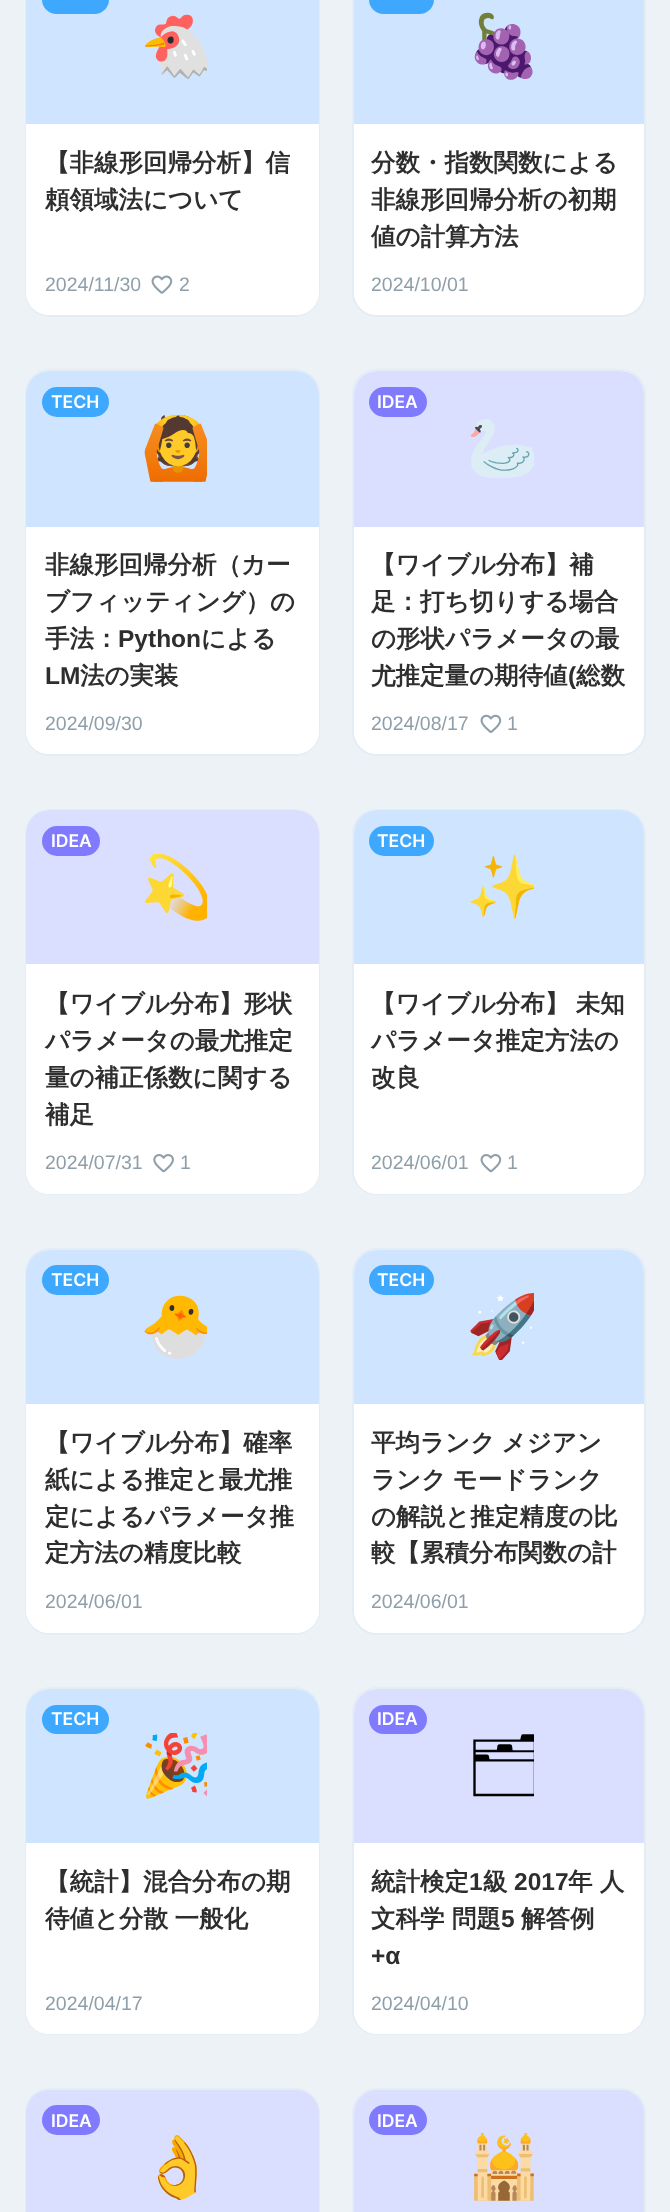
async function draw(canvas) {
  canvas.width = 670;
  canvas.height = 2212;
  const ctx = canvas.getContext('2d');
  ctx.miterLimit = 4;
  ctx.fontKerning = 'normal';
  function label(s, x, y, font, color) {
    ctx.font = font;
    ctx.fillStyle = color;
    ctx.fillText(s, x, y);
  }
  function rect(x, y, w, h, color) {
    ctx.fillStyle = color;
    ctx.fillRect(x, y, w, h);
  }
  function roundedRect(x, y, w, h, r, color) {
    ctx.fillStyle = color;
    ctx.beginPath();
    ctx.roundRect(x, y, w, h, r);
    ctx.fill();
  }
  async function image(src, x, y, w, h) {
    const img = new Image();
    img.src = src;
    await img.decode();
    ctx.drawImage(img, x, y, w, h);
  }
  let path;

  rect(0, 0, 670, 2212, '#edf2f7');
  ctx.beginPath();
  ctx.roundRect(26, -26, 293, 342, 24);
  ctx.strokeStyle = '#e4edf4';
  ctx.lineWidth = 2;
  ctx.stroke();
  roundedRect(26, -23, 293, 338, 23, '#fff');
  rect(26, 0, 293, 124, '#cfe5ff');
  roundedRect(42, -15, 67, 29, 15, '#3ea8ff');
  ctx.save();
  ctx.beginPath();
  ctx.rect(140, 12, 67, 69);
  ctx.clip();
  ctx.letterSpacing = '6px';
  label('🐔', 140, 67, '61px Noto Color Emoji', '#000');
  ctx.restore();
  label('【非線形回帰分析】信', 45, 171, 'bold 24.5px WenQuanYi Zen Hei', '#2e2e2e');
  label('頼領域法について', 45, 208, 'bold 24.5px WenQuanYi Zen Hei', '#2e2e2e');
  ctx.fillStyle = '#fff';
  ctx.beginPath();
  ctx.roundRect(26, 256, 293, 59, [0, 0, 23, 23]);
  ctx.fill();
  label('2024/11/30', 45, 291, '19.5px Liberation Sans', '#8f9faa');
  await image('assets/img1.png', 151, 275, 22, 19);
  label('2', 179, 291, '19.5px Liberation Sans', '#8f9faa');
  ctx.beginPath();
  ctx.roundRect(353, -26, 292, 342, 24);
  ctx.stroke();
  roundedRect(354, -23, 290, 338, 23, '#fff');
  rect(354, 0, 290, 124, '#cfe5ff');
  roundedRect(369, -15, 65, 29, 15, '#3ea8ff');
  ctx.save();
  ctx.beginPath();
  ctx.rect(466, 12, 68, 69);
  ctx.clip();
  ctx.letterSpacing = '6px';
  label('🍇', 466, 67, '61px Noto Color Emoji', '#000');
  ctx.restore();
  label('分数・指数関数による', 371, 171, 'bold 24.5px WenQuanYi Zen Hei', '#2e2e2e');
  label('非線形回帰分析の初期', 371, 208, 'bold 24.5px WenQuanYi Zen Hei', '#2e2e2e');
  label('値の計算方法', 371, 245, 'bold 24.5px WenQuanYi Zen Hei', '#2e2e2e');
  ctx.fillStyle = '#fff';
  ctx.beginPath();
  ctx.roundRect(354, 256, 290, 59, [0, 0, 23, 23]);
  ctx.fill();
  label('2024/10/01', 371, 291, '19.5px Liberation Sans', '#8f9faa');
  ctx.beginPath();
  ctx.roundRect(26, 370, 293, 385, 24);
  ctx.stroke();
  roundedRect(26, 371, 293, 383, 23, '#fff');
  ctx.fillStyle = '#cfe5ff';
  ctx.beginPath();
  ctx.roundRect(26, 371, 293, 156, [23, 23, 0, 0]);
  ctx.fill();
  roundedRect(42, 387, 67, 30, 15, '#3ea8ff');
  label('TECH', 51, 408, '600 17.5px Inter', '#fff');
  ctx.save();
  ctx.beginPath();
  ctx.rect(140, 415, 67, 68);
  ctx.clip();
  ctx.letterSpacing = '6px';
  label('🙆', 140, 469, '61px Noto Color Emoji', '#000');
  ctx.restore();
  label('非線形回帰分析（カー', 45, 573, 'bold 24.5px WenQuanYi Zen Hei', '#2e2e2e');
  label('ブフィッティング）の', 45, 610, 'bold 24.5px WenQuanYi Zen Hei', '#2e2e2e');
  label('手法：', 45, 647, 'bold 24.5px WenQuanYi Zen Hei', '#2e2e2e');
  label('Python', 118, 647, 'bold 24.5px Liberation Sans', '#2e2e2e');
  label('による', 201, 647, 'bold 24.5px WenQuanYi Zen Hei', '#2e2e2e');
  label('LM', 45, 684, 'bold 24.5px Liberation Sans', '#2e2e2e');
  label('法の実装', 80, 684, 'bold 24.5px WenQuanYi Zen Hei', '#2e2e2e');
  ctx.fillStyle = '#fff';
  ctx.beginPath();
  ctx.roundRect(26, 695, 293, 59, [0, 0, 23, 23]);
  ctx.fill();
  label('2024/09/30', 45, 730, '19.5px Liberation Sans', '#8f9faa');
  ctx.beginPath();
  ctx.roundRect(353, 370, 292, 385, 24);
  ctx.stroke();
  roundedRect(354, 371, 290, 383, 23, '#fff');
  ctx.fillStyle = '#dbdfff';
  ctx.beginPath();
  ctx.roundRect(354, 371, 290, 156, [23, 23, 0, 0]);
  ctx.fill();
  roundedRect(369, 387, 58, 30, 15, '#807aff');
  label('IDEA', 377, 408, '600 17.5px Inter', '#fff');
  ctx.save();
  ctx.beginPath();
  ctx.rect(466, 415, 68, 68);
  ctx.clip();
  ctx.letterSpacing = '6px';
  label('🦢', 466, 469, '61px Noto Color Emoji', '#000');
  ctx.restore();
  label('【ワイブル分布】補', 371, 573, 'bold 24.5px WenQuanYi Zen Hei', '#2e2e2e');
  label('足：打ち切りする場合', 371, 610, 'bold 24.5px WenQuanYi Zen Hei', '#2e2e2e');
  label('の形状パラメータの最', 371, 647, 'bold 24.5px WenQuanYi Zen Hei', '#2e2e2e');
  label('尤推定量の期待値', 371, 684, 'bold 24.5px WenQuanYi Zen Hei', '#2e2e2e');
  label('(', 568, 684, 'bold 24.5px Liberation Sans', '#2e2e2e');
  label('総数', 576, 684, 'bold 24.5px WenQuanYi Zen Hei', '#2e2e2e');
  ctx.fillStyle = '#fff';
  ctx.beginPath();
  ctx.roundRect(354, 695, 290, 59, [0, 0, 23, 23]);
  ctx.fill();
  label('2024/08/17', 371, 730, '19.5px Liberation Sans', '#8f9faa');
  await image('assets/img2.png', 480, 714, 22, 19);
  label('1', 507, 730, '19.5px Liberation Sans', '#8f9faa');
  ctx.beginPath();
  ctx.roundRect(26, 810, 293, 384, 24);
  ctx.stroke();
  roundedRect(26, 810, 293, 384, 23, '#fff');
  ctx.fillStyle = '#dbdfff';
  ctx.beginPath();
  ctx.roundRect(26, 810, 293, 154, [23, 23, 0, 0]);
  ctx.fill();
  roundedRect(42, 826, 58, 30, 15, '#807aff');
  label('IDEA', 51, 847, '600 17.5px Inter', '#fff');
  ctx.save();
  ctx.beginPath();
  ctx.rect(140, 854, 67, 67);
  ctx.clip();
  ctx.letterSpacing = '6px';
  label('💫', 140, 908, '61px Noto Color Emoji', '#000');
  ctx.restore();
  label('【ワイブル分布】形状', 45, 1012, 'bold 24.5px WenQuanYi Zen Hei', '#2e2e2e');
  label('パラメータの最尤推定', 45, 1049, 'bold 24.5px WenQuanYi Zen Hei', '#2e2e2e');
  label('量の補正係数に関する', 45, 1086, 'bold 24.5px WenQuanYi Zen Hei', '#2e2e2e');
  label('補足', 45, 1123, 'bold 24.5px WenQuanYi Zen Hei', '#2e2e2e');
  ctx.fillStyle = '#fff';
  ctx.beginPath();
  ctx.roundRect(26, 1132, 293, 62, [0, 0, 23, 23]);
  ctx.fill();
  label('2024/07/31', 45, 1169, '19.5px Liberation Sans', '#8f9faa');
  await image('assets/img3.png', 153, 1154, 21, 19);
  label('1', 180, 1169, '19.5px Liberation Sans', '#8f9faa');
  ctx.beginPath();
  ctx.roundRect(353, 810, 292, 384, 24);
  ctx.stroke();
  roundedRect(354, 810, 290, 384, 23, '#fff');
  ctx.fillStyle = '#cfe5ff';
  ctx.beginPath();
  ctx.roundRect(354, 810, 290, 154, [23, 23, 0, 0]);
  ctx.fill();
  roundedRect(369, 826, 65, 30, 15, '#3ea8ff');
  label('TECH', 377, 847, '600 17.5px Inter', '#fff');
  ctx.save();
  ctx.beginPath();
  ctx.rect(466, 854, 68, 67);
  ctx.clip();
  ctx.letterSpacing = '6px';
  label('✨', 466, 908, '61px Noto Color Emoji', '#000');
  ctx.restore();
  ctx.wordSpacing = '-1px';
  label('【ワイブル分布】 未知', 371, 1012, 'bold 24.5px WenQuanYi Zen Hei', '#2e2e2e');
  ctx.wordSpacing = '0px';
  label('パラメータ推定方法の', 371, 1049, 'bold 24.5px WenQuanYi Zen Hei', '#2e2e2e');
  label('改良', 371, 1086, 'bold 24.5px WenQuanYi Zen Hei', '#2e2e2e');
  ctx.fillStyle = '#fff';
  ctx.beginPath();
  ctx.roundRect(354, 1132, 290, 62, [0, 0, 23, 23]);
  ctx.fill();
  label('2024/06/01', 371, 1169, '19.5px Liberation Sans', '#8f9faa');
  await image('assets/img4.png', 480, 1154, 22, 19);
  label('1', 507, 1169, '19.5px Liberation Sans', '#8f9faa');
  ctx.beginPath();
  ctx.roundRect(26, 1249, 293, 385, 24);
  ctx.stroke();
  roundedRect(26, 1250, 293, 383, 23, '#fff');
  ctx.fillStyle = '#cfe5ff';
  ctx.beginPath();
  ctx.roundRect(26, 1250, 293, 154, [23, 23, 0, 0]);
  ctx.fill();
  roundedRect(42, 1265, 67, 30, 15, '#3ea8ff');
  label('TECH', 51, 1286, '600 17.5px Inter', '#fff');
  ctx.save();
  ctx.beginPath();
  ctx.rect(140, 1293, 67, 67);
  ctx.clip();
  ctx.letterSpacing = '6px';
  label('🐣', 140, 1347, '61px Noto Color Emoji', '#000');
  ctx.restore();
  label('【ワイブル分布】確率', 45, 1451, 'bold 24.5px WenQuanYi Zen Hei', '#2e2e2e');
  label('紙による推定と最尤推', 45, 1488, 'bold 24.5px WenQuanYi Zen Hei', '#2e2e2e');
  label('定によるパラメータ推', 45, 1525, 'bold 24.5px WenQuanYi Zen Hei', '#2e2e2e');
  label('定方法の精度比較', 45, 1561, 'bold 24.5px WenQuanYi Zen Hei', '#2e2e2e');
  ctx.fillStyle = '#fff';
  ctx.beginPath();
  ctx.roundRect(26, 1572, 293, 61, [0, 0, 23, 23]);
  ctx.fill();
  label('2024/06/01', 45, 1608, '19.5px Liberation Sans', '#8f9faa');
  ctx.beginPath();
  ctx.roundRect(353, 1249, 292, 385, 24);
  ctx.stroke();
  roundedRect(354, 1250, 290, 383, 23, '#fff');
  ctx.fillStyle = '#cfe5ff';
  ctx.beginPath();
  ctx.roundRect(354, 1250, 290, 154, [23, 23, 0, 0]);
  ctx.fill();
  roundedRect(369, 1265, 65, 30, 15, '#3ea8ff');
  label('TECH', 377, 1286, '600 17.5px Inter', '#fff');
  ctx.save();
  ctx.beginPath();
  ctx.rect(466, 1293, 68, 67);
  ctx.clip();
  ctx.letterSpacing = '6px';
  label('🚀', 466, 1347, '61px Noto Color Emoji', '#000');
  ctx.restore();
  ctx.wordSpacing = '-1px';
  label('平均ランク メジアン', 371, 1451, 'bold 24.5px WenQuanYi Zen Hei', '#2e2e2e');
  label('ランク モードランク', 371, 1488, 'bold 24.5px WenQuanYi Zen Hei', '#2e2e2e');
  ctx.wordSpacing = '0px';
  label('の解説と推定精度の比', 371, 1525, 'bold 24.5px WenQuanYi Zen Hei', '#2e2e2e');
  label('較【累積分布関数の計', 371, 1561, 'bold 24.5px WenQuanYi Zen Hei', '#2e2e2e');
  ctx.fillStyle = '#fff';
  ctx.beginPath();
  ctx.roundRect(354, 1572, 290, 61, [0, 0, 23, 23]);
  ctx.fill();
  label('2024/06/01', 371, 1608, '19.5px Liberation Sans', '#8f9faa');
  ctx.beginPath();
  ctx.roundRect(26, 1688, 293, 346, 24);
  ctx.stroke();
  roundedRect(26, 1689, 293, 345, 23, '#fff');
  ctx.fillStyle = '#cfe5ff';
  ctx.beginPath();
  ctx.roundRect(26, 1689, 293, 154, [23, 23, 0, 0]);
  ctx.fill();
  roundedRect(42, 1705, 67, 29, 14.5, '#3ea8ff');
  label('TECH', 51, 1725, '600 17.5px Inter', '#fff');
  ctx.save();
  ctx.beginPath();
  ctx.rect(140, 1733, 67, 66);
  ctx.clip();
  ctx.letterSpacing = '6px';
  label('🎉', 140, 1786, '61px Noto Color Emoji', '#000');
  ctx.restore();
  label('【統計】混合分布の期', 45, 1890, 'bold 24.5px WenQuanYi Zen Hei', '#2e2e2e');
  ctx.wordSpacing = '-1px';
  label('待値と分散 一般化', 45, 1927, 'bold 24.5px WenQuanYi Zen Hei', '#2e2e2e');
  ctx.fillStyle = '#fff';
  ctx.beginPath();
  ctx.roundRect(26, 1974, 293, 60, [0, 0, 23, 23]);
  ctx.fill();
  ctx.wordSpacing = '0px';
  label('2024/04/17', 45, 2010, '19.5px Liberation Sans', '#8f9faa');
  ctx.beginPath();
  ctx.roundRect(353, 1688, 292, 346, 24);
  ctx.stroke();
  roundedRect(354, 1689, 290, 345, 23, '#fff');
  ctx.fillStyle = '#dbdfff';
  ctx.beginPath();
  ctx.roundRect(354, 1689, 290, 154, [23, 23, 0, 0]);
  ctx.fill();
  roundedRect(369, 1705, 58, 29, 14.5, '#807aff');
  label('IDEA', 377, 1725, '600 17.5px Inter', '#fff');
  ctx.save();
  ctx.beginPath();
  ctx.rect(466, 1733, 68, 66);
  ctx.clip();
  ctx.letterSpacing = '6px';
  label('🗂', 466, 1786, '61px Noto Emoji', '#000');
  ctx.restore();
  label('統計検定', 371, 1890, 'bold 24.5px WenQuanYi Zen Hei', '#2e2e2e');
  label('1', 469, 1890, 'bold 24.5px Liberation Sans', '#2e2e2e');
  label('級', 483, 1890, 'bold 24.5px WenQuanYi Zen Hei', '#2e2e2e');
  label('2017', 514, 1890, 'bold 24.5px Liberation Sans', '#2e2e2e');
  label('年 人', 568, 1890, 'bold 24.5px WenQuanYi Zen Hei', '#2e2e2e');
  label('文科学 問題', 371, 1927, 'bold 24.5px WenQuanYi Zen Hei', '#2e2e2e');
  label('5', 501, 1927, 'bold 24.5px Liberation Sans', '#2e2e2e');
  label('解答例', 521, 1927, 'bold 24.5px WenQuanYi Zen Hei', '#2e2e2e');
  label('+α', 371, 1964, 'bold 24.5px Liberation Sans', '#2e2e2e');
  ctx.fillStyle = '#fff';
  ctx.beginPath();
  ctx.roundRect(354, 1974, 290, 60, [0, 0, 23, 23]);
  ctx.fill();
  label('2024/04/10', 371, 2010, '19.5px Liberation Sans', '#8f9faa');
  ctx.beginPath();
  ctx.roundRect(26, 2089, 293, 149, 24);
  ctx.stroke();
  ctx.fillStyle = '#dbdfff';
  path = new Path2D('M49 2090H296C308.5 2090 319 2100.5 319 2113V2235H26V2113C26 2100.5 36.5 2090 49 2090Z');
  ctx.fill(path);
  roundedRect(42, 2105, 58, 30, 15, '#807aff');
  label('IDEA', 51, 2127, '600 17.5px Inter', '#fff');
  ctx.save();
  ctx.beginPath();
  ctx.rect(140, 2133, 67, 69);
  ctx.clip();
  ctx.letterSpacing = '6px';
  label('👌', 140, 2188, '61px Noto Color Emoji', '#000');
  ctx.restore();
  ctx.beginPath();
  ctx.roundRect(353, 2089, 292, 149, 24);
  ctx.stroke();
  ctx.fillStyle = '#dbdfff';
  path = new Path2D('M377 2090H621C633.5 2090 644 2100.5 644 2113V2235H354V2113C354 2100.5 364.5 2090 377 2090Z');
  ctx.fill(path);
  roundedRect(369, 2105, 58, 30, 15, '#807aff');
  label('IDEA', 377, 2127, '600 17.5px Inter', '#fff');
  ctx.save();
  ctx.beginPath();
  ctx.rect(466, 2133, 68, 69);
  ctx.clip();
  ctx.letterSpacing = '6px';
  label('🕌', 466, 2188, '61px Noto Color Emoji', '#000');
  ctx.restore();
}

draw(document.querySelector('canvas'));
